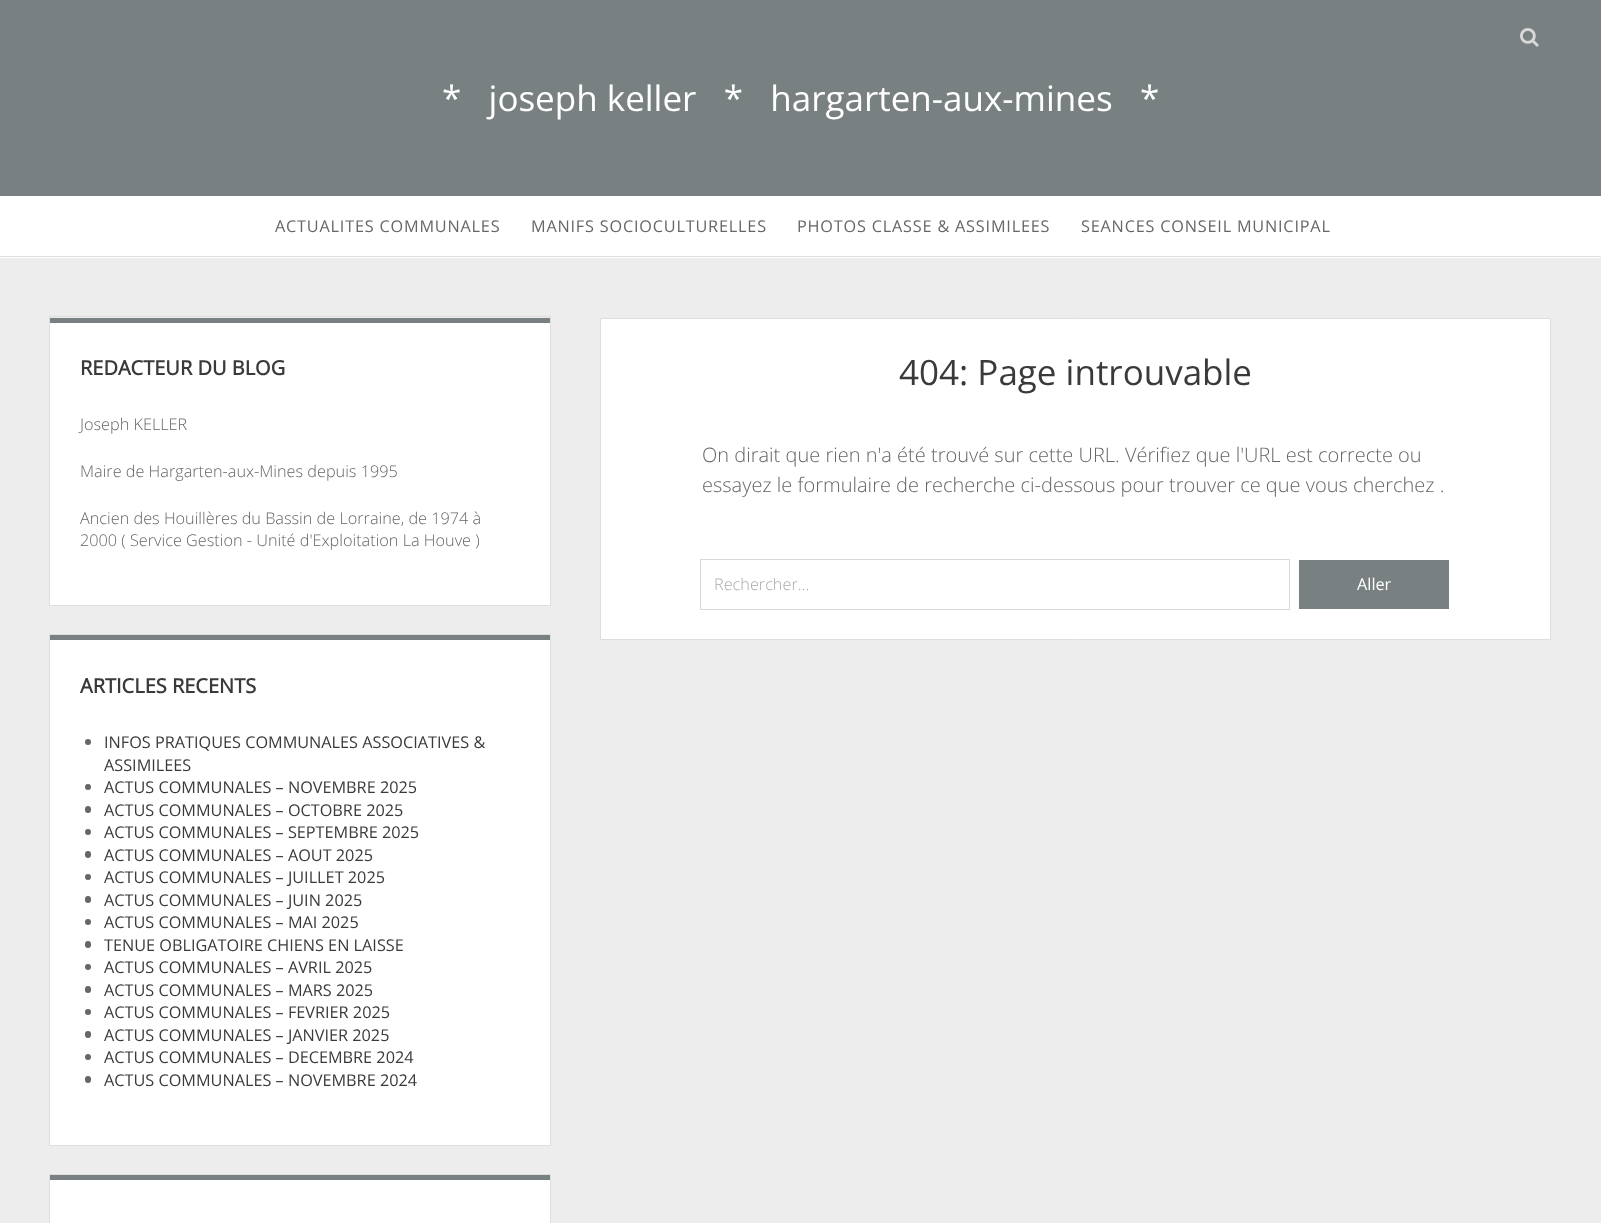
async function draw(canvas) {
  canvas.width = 1601;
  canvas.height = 1223;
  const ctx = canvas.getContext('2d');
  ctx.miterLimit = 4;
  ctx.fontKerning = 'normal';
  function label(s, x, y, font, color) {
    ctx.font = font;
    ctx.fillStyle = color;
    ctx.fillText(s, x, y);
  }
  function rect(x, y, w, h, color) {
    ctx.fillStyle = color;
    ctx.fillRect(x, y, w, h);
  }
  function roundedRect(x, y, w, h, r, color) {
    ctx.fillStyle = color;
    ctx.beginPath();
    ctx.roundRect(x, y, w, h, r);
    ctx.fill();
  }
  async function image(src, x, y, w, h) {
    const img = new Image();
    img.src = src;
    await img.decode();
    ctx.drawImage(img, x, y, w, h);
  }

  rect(0, 0, 1601, 1223, '#ededed');
  rect(0, 0, 1601, 196, '#798081');
  await image('assets/img1.png', 1520, 28, 19, 19);
  label('*   joseph keller   *   hargarten-aux-mines   *', 442, 111, '35px Open Sans', '#fff');
  rect(0, 196, 1601, 62, '#fff');
  rect(0, 256, 1601, 1, '#dedede');
  ctx.letterSpacing = '0.8px';
  label('ACTUALITES COMMUNALES', 275, 232, '16.25px Open Sans', '#666');
  label('MANIFS SOCIOCULTURELLES', 531, 232, '16.25px Open Sans', '#666');
  label('PHOTOS CLASSE & ASSIMILEES', 797, 232, '16.25px Open Sans', '#666');
  label('SEANCES CONSEIL MUNICIPAL', 1081, 232, '16.25px Open Sans', '#666');
  rect(50, 323, 500, 282, '#fff');
  rect(50, 318, 500, 5, '#798081');
  ctx.strokeStyle = '#dedede';
  ctx.strokeRect(49.5, 316.5, 501, 289);
  ctx.letterSpacing = '0px';
  label('REDACTEUR DU BLOG', 80, 375, 'bold 20px Open Sans', '#3a3a3a');
  label('Joseph KELLER', 80, 430, '300 16.25px Open Sans', '#666');
  label('Maire de Hargarten-aux-Mines depuis 1995', 80, 477, '300 16.25px Open Sans', '#666');
  label('Ancien des Houillères du Bassin de Lorraine, de 1974 à', 80, 524, '300 16.25px Open Sans', '#666');
  label('2000 ( Service Gestion - Unité d\'Exploitation La Houve )', 80, 546, '300 16.25px Open Sans', '#666');
  rect(50, 640, 500, 505, '#fff');
  rect(50, 635, 500, 5, '#798081');
  ctx.fillStyle = '#666';
  ctx.beginPath();
  ctx.arc(88, 742, 3, 0, 2 * Math.PI);
  ctx.fill();
  ctx.beginPath();
  ctx.arc(88, 787, 3, 0, 2 * Math.PI);
  ctx.fill();
  roundedRect(85, 806, 6, 7, 3, '#666');
  ctx.beginPath();
  ctx.arc(88, 832, 3, 0, 2 * Math.PI);
  ctx.fill();
  roundedRect(85, 851, 6, 7, 3, '#666');
  ctx.beginPath();
  ctx.arc(88, 877, 3, 0, 2 * Math.PI);
  ctx.fill();
  roundedRect(85, 896, 6, 7, 3, '#666');
  ctx.beginPath();
  ctx.arc(88, 922, 3, 0, 2 * Math.PI);
  ctx.fill();
  roundedRect(85, 941, 6, 7, 3, '#666');
  ctx.beginPath();
  ctx.arc(88, 967, 3, 0, 2 * Math.PI);
  ctx.fill();
  roundedRect(85, 986, 6, 7, 3, '#666');
  ctx.beginPath();
  ctx.arc(88, 1012, 3, 0, 2 * Math.PI);
  ctx.fill();
  roundedRect(85, 1031, 6, 7, 3, '#666');
  ctx.beginPath();
  ctx.arc(88, 1057, 3, 0, 2 * Math.PI);
  ctx.fill();
  roundedRect(85, 1076, 6, 7, 3, '#666');
  ctx.strokeRect(49.5, 634.5, 501, 511);
  label('ARTICLES RECENTS', 80, 693, 'bold 20px Open Sans', '#3a3a3a');
  label('INFOS PRATIQUES COMMUNALES ASSOCIATIVES &', 104, 748, '16.25px Open Sans', '#3a3a3a');
  label('ASSIMILEES', 104, 771, '16.25px Open Sans', '#3a3a3a');
  label('ACTUS COMMUNALES – NOVEMBRE 2025', 104, 793, '16.25px Open Sans', '#3a3a3a');
  label('ACTUS COMMUNALES – OCTOBRE 2025', 104, 816, '16.25px Open Sans', '#3a3a3a');
  label('ACTUS COMMUNALES – SEPTEMBRE 2025', 104, 838, '16.25px Open Sans', '#3a3a3a');
  label('ACTUS COMMUNALES – AOUT 2025', 104, 861, '16.25px Open Sans', '#3a3a3a');
  label('ACTUS COMMUNALES – JUILLET 2025', 104, 883, '16.25px Open Sans', '#3a3a3a');
  label('ACTUS COMMUNALES – JUIN 2025', 104, 906, '16.25px Open Sans', '#3a3a3a');
  label('ACTUS COMMUNALES – MAI 2025', 104, 928, '16.25px Open Sans', '#3a3a3a');
  label('TENUE OBLIGATOIRE CHIENS EN LAISSE', 104, 951, '16.25px Open Sans', '#3a3a3a');
  label('ACTUS COMMUNALES – AVRIL 2025', 104, 973, '16.25px Open Sans', '#3a3a3a');
  label('ACTUS COMMUNALES – MARS 2025', 104, 996, '16.25px Open Sans', '#3a3a3a');
  label('ACTUS COMMUNALES – FEVRIER 2025', 104, 1018, '16.25px Open Sans', '#3a3a3a');
  label('ACTUS COMMUNALES – JANVIER 2025', 104, 1041, '16.25px Open Sans', '#3a3a3a');
  label('ACTUS COMMUNALES – DECEMBRE 2024', 104, 1063, '16.25px Open Sans', '#3a3a3a');
  label('ACTUS COMMUNALES – NOVEMBRE 2024', 104, 1086, '16.25px Open Sans', '#3a3a3a');
  rect(50, 1180, 500, 43, '#fff');
  rect(50, 1175, 500, 5, '#798081');
  ctx.strokeRect(49.5, 1174.5, 501, 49);
  ctx.fillStyle = '#fff';
  ctx.beginPath();
  ctx.rect(600.5, 318.5, 950, 321);
  ctx.fill();
  ctx.stroke();
  label('404: Page introuvable', 899, 385, '35px Open Sans', '#3a3a3a');
  label('On dirait que rien n\'a été trouvé sur cette URL. Vérifiez que l\'URL est correcte ou', 702, 462, '300 20px Open Sans', '#666');
  label('essayez le formulaire de recherche ci-dessous pour trouver ce que vous cherchez .', 702, 492, '300 20px Open Sans', '#666');
  ctx.strokeStyle = '#d9d9d9';
  ctx.strokeRect(700.5, 559.5, 589, 50);
  label('Rechercher...', 714, 590, '300 16.25px Open Sans', '#ababab');
  rect(1299, 560, 150, 49, '#798081');
  label('Aller', 1357, 590, '16.25px Open Sans', '#fff');
}

draw(document.querySelector('canvas'));
